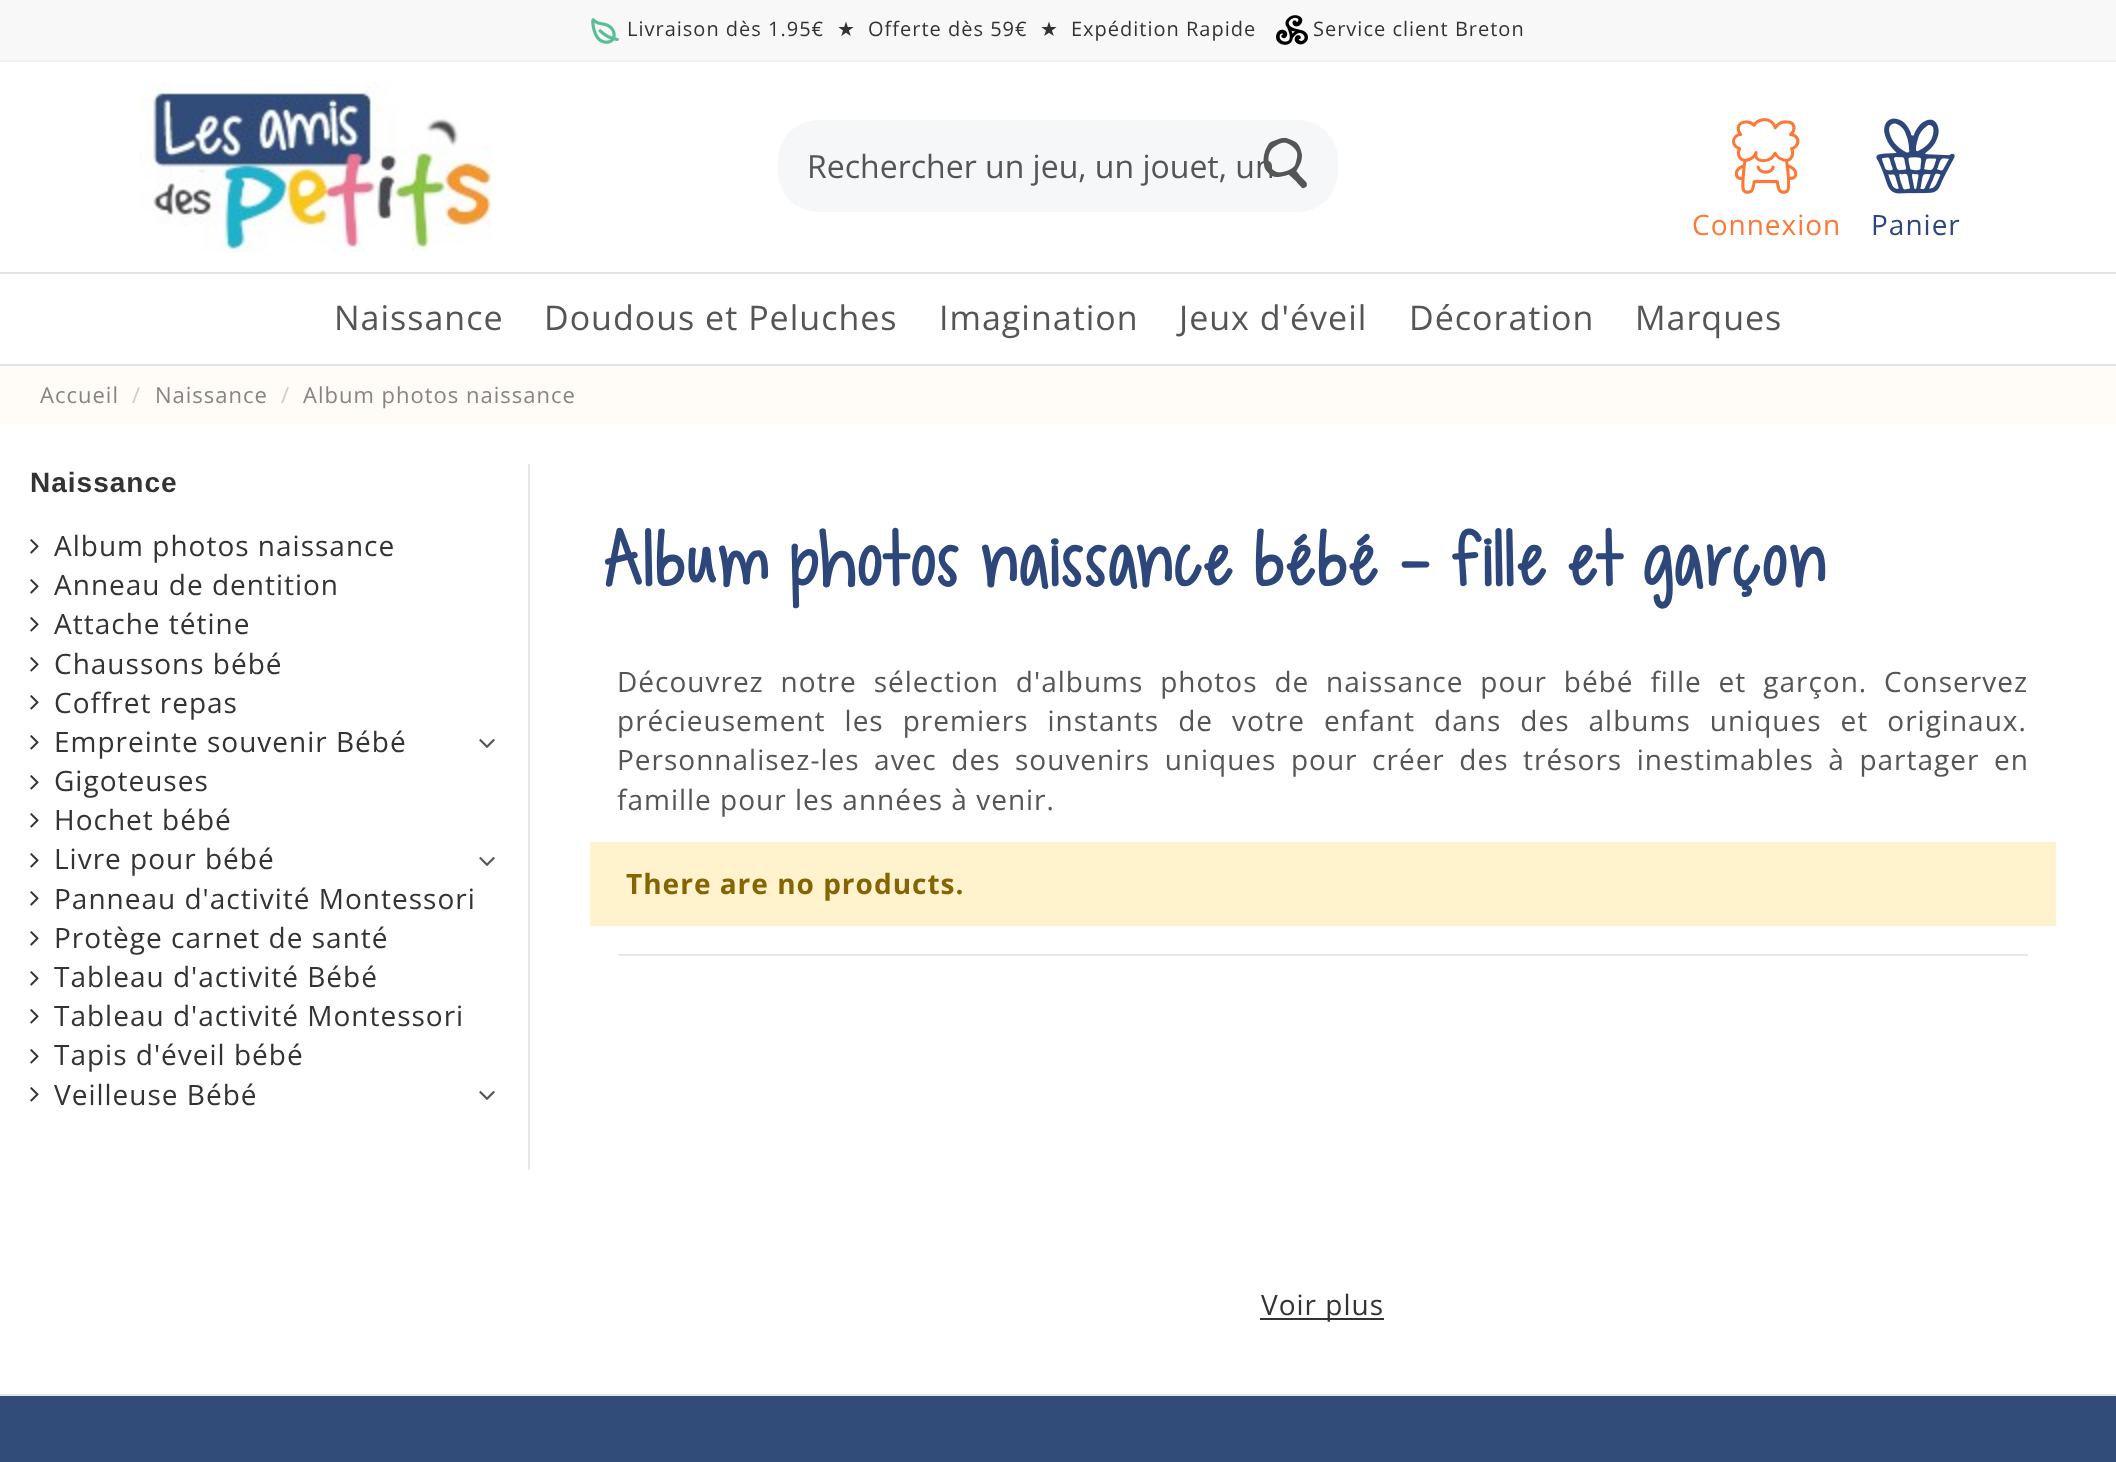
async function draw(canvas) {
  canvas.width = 2116;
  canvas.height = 1462;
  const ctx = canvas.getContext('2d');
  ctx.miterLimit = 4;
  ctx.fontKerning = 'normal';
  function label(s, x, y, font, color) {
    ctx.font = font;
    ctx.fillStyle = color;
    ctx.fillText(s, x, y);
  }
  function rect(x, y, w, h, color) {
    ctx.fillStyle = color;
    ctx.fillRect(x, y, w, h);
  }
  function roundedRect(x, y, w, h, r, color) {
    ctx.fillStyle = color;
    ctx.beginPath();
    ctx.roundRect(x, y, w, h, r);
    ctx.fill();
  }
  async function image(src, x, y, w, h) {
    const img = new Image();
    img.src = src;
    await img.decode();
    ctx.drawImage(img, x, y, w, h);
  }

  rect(0, 0, 2116, 1462, '#fff');
  rect(0, 0, 2116, 60, '#f8f8f8');
  rect(0, 60, 2116, 2, '#efefef');
  await image('assets/img1.png', 591, 18, 28, 26);
  ctx.letterSpacing = '1px';
  label('Livraison dès 1.95€', 627, 36, '20px Open Sans', '#333');
  label('★', 837, 36, '20px DejaVu Sans', '#333');
  label('Offerte dès 59€', 868, 36, '20px Open Sans', '#333');
  label('★', 1040, 36, '20px DejaVu Sans', '#333');
  label('Expédition Rapide', 1071, 36, '20px Open Sans', '#333');
  await image('assets/img2.png', 1276, 15, 32, 30);
  label('Service client Breton', 1313, 36, '20px Open Sans', '#333');
  await image('assets/img3.png', 140, 82, 353, 170);
  roundedRect(778, 120, 560, 92, 40, '#f6f7f9');
  ctx.letterSpacing = '0px';
  label('Rechercher un jeu, un jouet, un', 807, 178, '32px Open Sans', '#555');
  await image('assets/img4.png', 1263, 137, 44, 52);
  await image('assets/img5.png', 1732, 118, 68, 76);
  ctx.letterSpacing = '1px';
  label('Connexion', 1692, 235, '28px Open Sans', '#fc7837');
  await image('assets/img6.png', 1876, 118, 79, 76);
  label('Panier', 1871, 235, '28px Open Sans', '#2d477a');
  rect(0, 272, 2116, 2, '#e3e3e3');
  rect(0, 364, 2116, 2, '#e3e3e3');
  label('Naissance', 334, 330, '34px Open Sans', '#555');
  label('Doudous et Peluches', 544, 330, '34px Open Sans', '#555');
  label('Imagination', 939, 330, '34px Open Sans', '#555');
  label('Jeux d\'éveil', 1179, 330, '34px Open Sans', '#555');
  label('Décoration', 1409, 330, '34px Open Sans', '#555');
  label('Marques', 1635, 330, '34px Open Sans', '#555');
  rect(0, 366, 2116, 58, '#fffcf7');
  label('Accueil', 40, 403, '22px Open Sans', '#858585');
  label('/', 132, 403, '22px Open Sans', '#ceccc9');
  label('Naissance', 155, 403, '22px Open Sans', '#858585');
  label('/', 281, 403, '22px Open Sans', '#ceccc9');
  label('Album photos naissance', 303, 403, '22px Open Sans', '#858585');
  rect(528, 464, 2, 706, '#e8e8e8');
  label('Naissance', 30, 492, 'bold 28px Liberation Sans', '#333');
  await image('assets/img7.png', 30, 539, 9, 15);
  label('Album photos naissance', 54, 556, '28px Open Sans', '#333');
  await image('assets/img7.png', 30, 579, 9, 15);
  label('Anneau de dentition', 54, 595, '28px Open Sans', '#333');
  await image('assets/img7.png', 30, 617, 9, 15);
  label('Attache tétine', 54, 634, '28px Open Sans', '#333');
  await image('assets/img7.png', 30, 657, 9, 15);
  label('Chaussons bébé', 54, 674, '28px Open Sans', '#333');
  await image('assets/img7.png', 30, 695, 9, 15);
  label('Coffret repas', 54, 713, '28px Open Sans', '#333');
  await image('assets/img7.png', 30, 735, 9, 15);
  label('Empreinte souvenir Bébé', 54, 752, '28px Open Sans', '#333');
  await image('assets/img8.png', 479, 739, 16, 9);
  await image('assets/img7.png', 30, 775, 9, 15);
  label('Gigoteuses', 54, 791, '28px Open Sans', '#333');
  await image('assets/img7.png', 30, 813, 9, 15);
  label('Hochet bébé', 54, 830, '28px Open Sans', '#333');
  await image('assets/img7.png', 30, 853, 9, 15);
  label('Livre pour bébé', 54, 869, '28px Open Sans', '#333');
  await image('assets/img8.png', 479, 857, 16, 9);
  await image('assets/img7.png', 30, 891, 9, 15);
  label('Panneau d\'activité Montessori', 54, 909, '28px Open Sans', '#333');
  await image('assets/img7.png', 30, 931, 9, 15);
  label('Protège carnet de santé', 54, 948, '28px Open Sans', '#333');
  await image('assets/img7.png', 30, 971, 9, 15);
  label('Tableau d\'activité Bébé', 54, 987, '28px Open Sans', '#333');
  await image('assets/img7.png', 30, 1009, 9, 15);
  label('Tableau d\'activité Montessori', 54, 1026, '28px Open Sans', '#333');
  await image('assets/img7.png', 30, 1049, 9, 15);
  label('Tapis d\'éveil bébé', 54, 1065, '28px Open Sans', '#333');
  await image('assets/img7.png', 30, 1087, 9, 15);
  label('Veilleuse Bébé', 54, 1105, '28px Open Sans', '#333');
  await image('assets/img8.png', 479, 1091, 16, 9);
  ctx.letterSpacing = '2px';
  label('Album photos naissance bébé - fille et garçon', 603, 586, 'bold 56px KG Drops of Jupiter', '#2d477a');
  ctx.letterSpacing = '1px';
  ctx.wordSpacing = '8.6px';
  label('Découvrez notre sélection d\'albums photos de naissance pour bébé fille et garçon. Conservez', 617, 692, '28px Open Sans', '#555');
  ctx.wordSpacing = '10.75px';
  label('précieusement les premiers instants de votre enfant dans des albums uniques et originaux.', 617, 731, '28px Open Sans', '#555');
  ctx.wordSpacing = '6.25px';
  label('Personnalisez-les avec des souvenirs uniques pour créer des trésors inestimables à partager en', 617, 770, '28px Open Sans', '#555');
  ctx.wordSpacing = '0px';
  label('famille pour les années à venir.', 617, 810, '28px Open Sans', '#555');
  rect(590, 842, 1466, 84, '#fff3cd');
  label('There are no products.', 626, 894, 'bold 28px Open Sans', '#856404');
  rect(618, 954, 1410, 2, '#e8e8e8');
  rect(1260, 1318, 124, 2, '#333');
  label('Voir plus', 1261, 1315, '28px Open Sans', '#333');
  rect(0, 1396, 2116, 66, '#314c79');
  rect(0, 1394, 2116, 2, '#e6e6e6');
}

draw(document.querySelector('canvas'));
